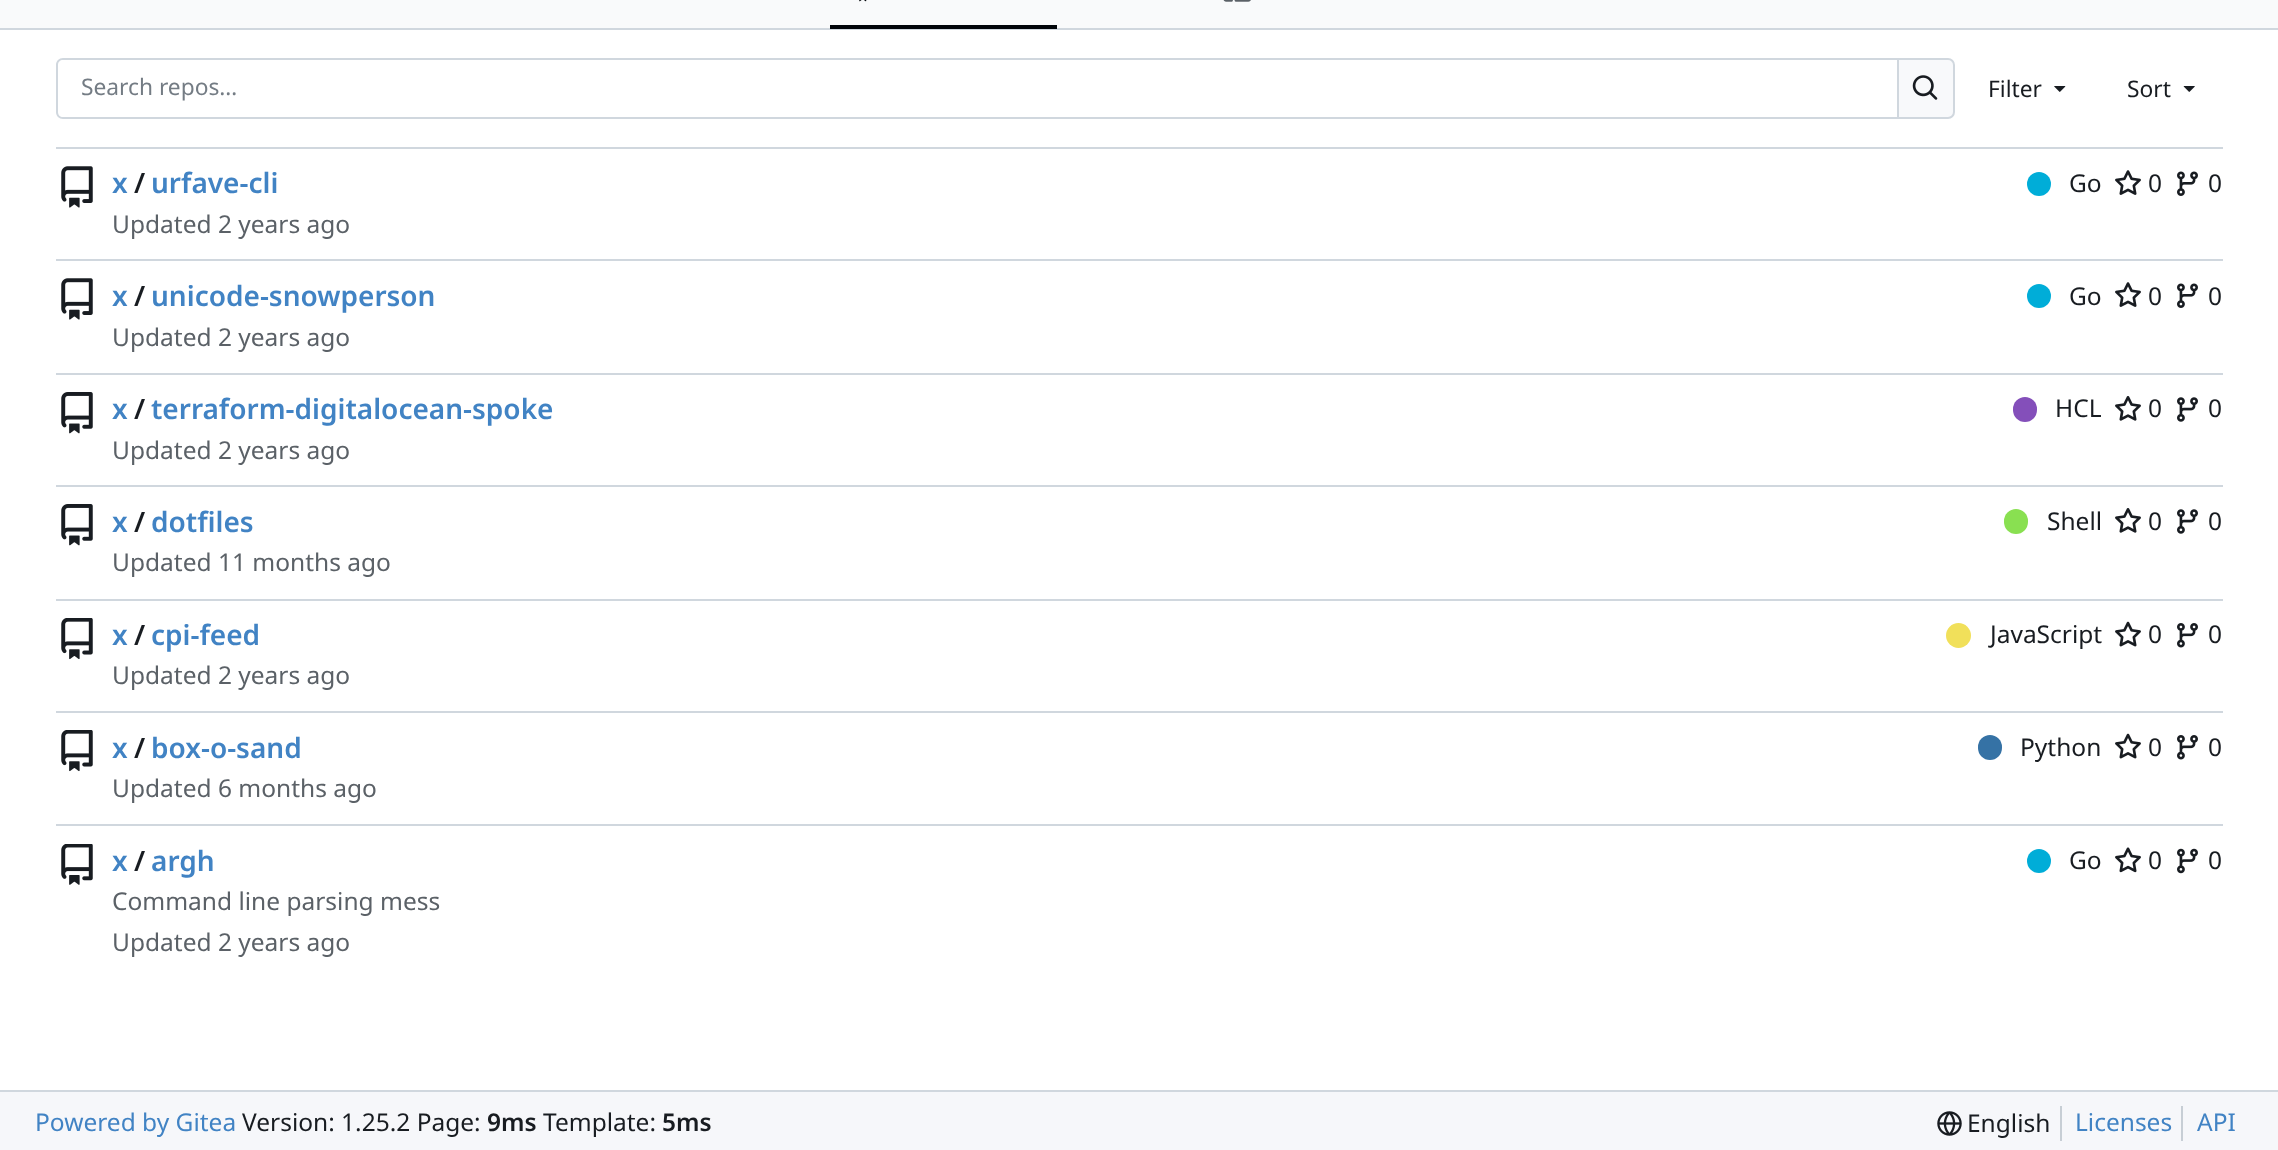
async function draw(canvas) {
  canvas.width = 2278;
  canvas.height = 1150;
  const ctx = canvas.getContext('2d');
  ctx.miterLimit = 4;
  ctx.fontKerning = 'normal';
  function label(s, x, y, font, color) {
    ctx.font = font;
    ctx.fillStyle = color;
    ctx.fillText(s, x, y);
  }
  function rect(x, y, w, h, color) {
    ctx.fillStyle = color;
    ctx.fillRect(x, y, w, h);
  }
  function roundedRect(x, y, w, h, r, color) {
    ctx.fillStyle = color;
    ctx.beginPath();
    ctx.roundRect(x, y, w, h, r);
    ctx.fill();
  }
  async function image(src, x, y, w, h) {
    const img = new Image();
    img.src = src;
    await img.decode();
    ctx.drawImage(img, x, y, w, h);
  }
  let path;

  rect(0, 0, 2278, 1150, '#fff');
  rect(0, 0, 2278, 28, '#f9fafb');
  rect(0, 28, 2278, 2, '#d0d7de');
  rect(830, 25, 227, 4, '#01050a');
  await image('assets/img1.png', 859, 0, 8, 2);
  await image('assets/img2.png', 1223, 0, 28, 2);
  ctx.fillStyle = '#d0d7de';
  path = new Path2D('M63 58H1897V119H63C59 119 56 116 56 112V65C56 61 59 58 63 58ZM63 60H1897V117H63C60 117 58 115 58 112V65C58 62 60 60 63 60Z');
  ctx.fill(path, 'evenodd');
  label('Search repos…', 81, 95, '22.75px Noto Sans', '#747c84');
  ctx.fillStyle = '#f8f9fb';
  ctx.beginPath();
  ctx.roundRect(1898, 59, 56, 59, [0, 6, 6, 0]);
  ctx.fill();
  ctx.strokeStyle = '#d0d7de';
  ctx.lineWidth = 2;
  ctx.stroke();
  await image('assets/img3.png', 1912, 75, 26, 25);
  label('Filter', 1988, 97, '22.75px Noto Sans', '#181c21');
  await image('assets/img4.png', 2054, 86, 12, 6);
  label('Sort', 2127, 97, '22.75px Noto Sans', '#181c21');
  await image('assets/img5.png', 2183, 86, 12, 6);
  rect(56, 147, 2167, 2, '#d0d7de');
  await image('assets/img6.png', 61, 166, 32, 42);
  label('x', 112, 193, '600 28px Noto Sans', '#4183c4');
  label('/', 134, 193, '600 28px Noto Sans', '#181c21');
  label('urfave-cli', 151, 193, '600 28px Noto Sans', '#4183c4');
  ctx.fillStyle = '#00add8';
  ctx.beginPath();
  ctx.arc(2039, 184, 12, 0, 2 * Math.PI);
  ctx.fill();
  label('Go', 2069, 192, '24.5px Noto Sans', '#181c21');
  await image('assets/img7.png', 2115, 170, 26, 25);
  label('0', 2148, 192, '24.5px Noto Sans', '#181c21');
  await image('assets/img8.png', 2177, 171, 21, 25);
  label('0', 2208, 192, '24.5px Noto Sans', '#181c21');
  label('Updated 2 years ago', 112, 233, '24.5px Noto Sans', '#5b6167');
  rect(56, 259, 2167, 2, '#d0d7de');
  await image('assets/img6.png', 61, 278, 32, 42);
  label('x', 112, 306, '600 28px Noto Sans', '#4183c4');
  label('/', 134, 306, '600 28px Noto Sans', '#181c21');
  label('unicode-snowperson', 151, 306, '600 28px Noto Sans', '#4183c4');
  ctx.fillStyle = '#00add8';
  ctx.beginPath();
  ctx.arc(2039, 296, 12, 0, 2 * Math.PI);
  ctx.fill();
  label('Go', 2069, 305, '24.5px Noto Sans', '#181c21');
  await image('assets/img7.png', 2115, 282, 26, 25);
  label('0', 2148, 305, '24.5px Noto Sans', '#181c21');
  await image('assets/img8.png', 2177, 283, 21, 25);
  label('0', 2208, 305, '24.5px Noto Sans', '#181c21');
  label('Updated 2 years ago', 112, 346, '24.5px Noto Sans', '#5b6167');
  rect(56, 373, 2167, 2, '#d0d7de');
  await image('assets/img9.png', 61, 392, 32, 42);
  label('x', 112, 419, '600 28px Noto Sans', '#4183c4');
  label('/', 134, 419, '600 28px Noto Sans', '#181c21');
  label('terraform-digitalocean-spoke', 151, 419, '600 28px Noto Sans', '#4183c4');
  roundedRect(2013, 397, 24, 25, 12, '#844fba');
  label('HCL', 2055, 417, '24.5px Noto Sans', '#181c21');
  await image('assets/img10.png', 2115, 396, 26, 25);
  label('0', 2148, 417, '24.5px Noto Sans', '#181c21');
  await image('assets/img11.png', 2177, 397, 21, 25);
  label('0', 2208, 417, '24.5px Noto Sans', '#181c21');
  label('Updated 2 years ago', 112, 459, '24.5px Noto Sans', '#5b6167');
  rect(56, 485, 2167, 2, '#d0d7de');
  await image('assets/img9.png', 61, 504, 32, 42);
  label('x', 112, 532, '600 28px Noto Sans', '#4183c4');
  label('/', 134, 532, '600 28px Noto Sans', '#181c21');
  label('dotfiles', 151, 532, '600 28px Noto Sans', '#4183c4');
  roundedRect(2004, 509, 24, 25, 12, '#89e051');
  label('Shell', 2047, 530, '24.5px Noto Sans', '#181c21');
  await image('assets/img10.png', 2115, 508, 26, 25);
  label('0', 2148, 530, '24.5px Noto Sans', '#181c21');
  await image('assets/img11.png', 2177, 509, 21, 25);
  label('0', 2208, 530, '24.5px Noto Sans', '#181c21');
  label('Updated 11 months ago', 112, 571, '24.5px Noto Sans', '#5b6167');
  rect(56, 599, 2167, 2, '#d0d7de');
  await image('assets/img12.png', 61, 618, 32, 42);
  label('x', 112, 645, '600 28px Noto Sans', '#4183c4');
  label('/', 134, 645, '600 28px Noto Sans', '#181c21');
  label('cpi-feed', 151, 645, '600 28px Noto Sans', '#4183c4');
  ctx.fillStyle = '#f1e05a';
  ctx.beginPath();
  ctx.arc(1958.5, 635.5, 12.5, 0, 2 * Math.PI);
  ctx.fill();
  label('JavaScript', 1990, 643, '24.5px Noto Sans', '#181c21');
  await image('assets/img13.png', 2115, 621, 26, 26);
  label('0', 2148, 643, '24.5px Noto Sans', '#181c21');
  await image('assets/img14.png', 2177, 623, 21, 25);
  label('0', 2208, 643, '24.5px Noto Sans', '#181c21');
  label('Updated 2 years ago', 112, 684, '24.5px Noto Sans', '#5b6167');
  rect(56, 711, 2167, 2, '#d0d7de');
  await image('assets/img12.png', 61, 730, 32, 42);
  label('x', 112, 758, '600 28px Noto Sans', '#4183c4');
  label('/', 134, 758, '600 28px Noto Sans', '#181c21');
  label('box-o-sand', 151, 758, '600 28px Noto Sans', '#4183c4');
  roundedRect(1978, 735, 24, 25, 12, '#3572a5');
  label('Python', 2020, 756, '24.5px Noto Sans', '#181c21');
  await image('assets/img13.png', 2115, 733, 26, 26);
  label('0', 2148, 756, '24.5px Noto Sans', '#181c21');
  await image('assets/img14.png', 2177, 735, 21, 25);
  label('0', 2208, 756, '24.5px Noto Sans', '#181c21');
  label('Updated 6 months ago', 112, 797, '24.5px Noto Sans', '#5b6167');
  rect(56, 824, 2167, 2, '#d0d7de');
  await image('assets/img15.png', 61, 844, 32, 41);
  label('x', 112, 871, '600 28px Noto Sans', '#4183c4');
  label('/', 134, 871, '600 28px Noto Sans', '#181c21');
  label('argh', 151, 871, '600 28px Noto Sans', '#4183c4');
  ctx.fillStyle = '#00add8';
  ctx.beginPath();
  ctx.arc(2039, 861, 12, 0, 2 * Math.PI);
  ctx.fill();
  label('Go', 2069, 869, '24.5px Noto Sans', '#181c21');
  await image('assets/img16.png', 2115, 847, 26, 26);
  label('0', 2148, 869, '24.5px Noto Sans', '#181c21');
  await image('assets/img17.png', 2177, 848, 21, 26);
  label('0', 2208, 869, '24.5px Noto Sans', '#181c21');
  label('Command line parsing mess', 112, 910, '24.5px Noto Sans', '#5b6167');
  label('Updated 2 years ago', 112, 951, '24.5px Noto Sans', '#5b6167');
  rect(0, 1092, 2278, 58, '#f6f7fa');
  rect(0, 1090, 2278, 2, '#d0d7de');
  label('Powered by Gitea', 35, 1131, '24.5px Noto Sans', '#4183c4');
  label('Version: 1.25.2 Page:', 242, 1131, '24.5px Noto Sans', '#181c21');
  label('9ms', 487, 1131, '600 24.5px Noto Sans', '#181c21');
  label('Template:', 543, 1131, '24.5px Noto Sans', '#181c21');
  label('5ms', 662, 1131, '600 24.5px Noto Sans', '#181c21');
  await image('assets/img18.png', 1937, 1111, 25, 25);
  label('English', 1967, 1132, '24.5px Noto Sans', '#181c21');
  rect(2060, 1106, 2, 35, '#c7ced5');
  label('Licenses', 2075, 1131, '24.5px Noto Sans', '#4183c4');
  rect(2181, 1106, 2, 35, '#c7ced5');
  label('API', 2197, 1131, '24.5px Noto Sans', '#4183c4');
}

draw(document.querySelector('canvas'));
